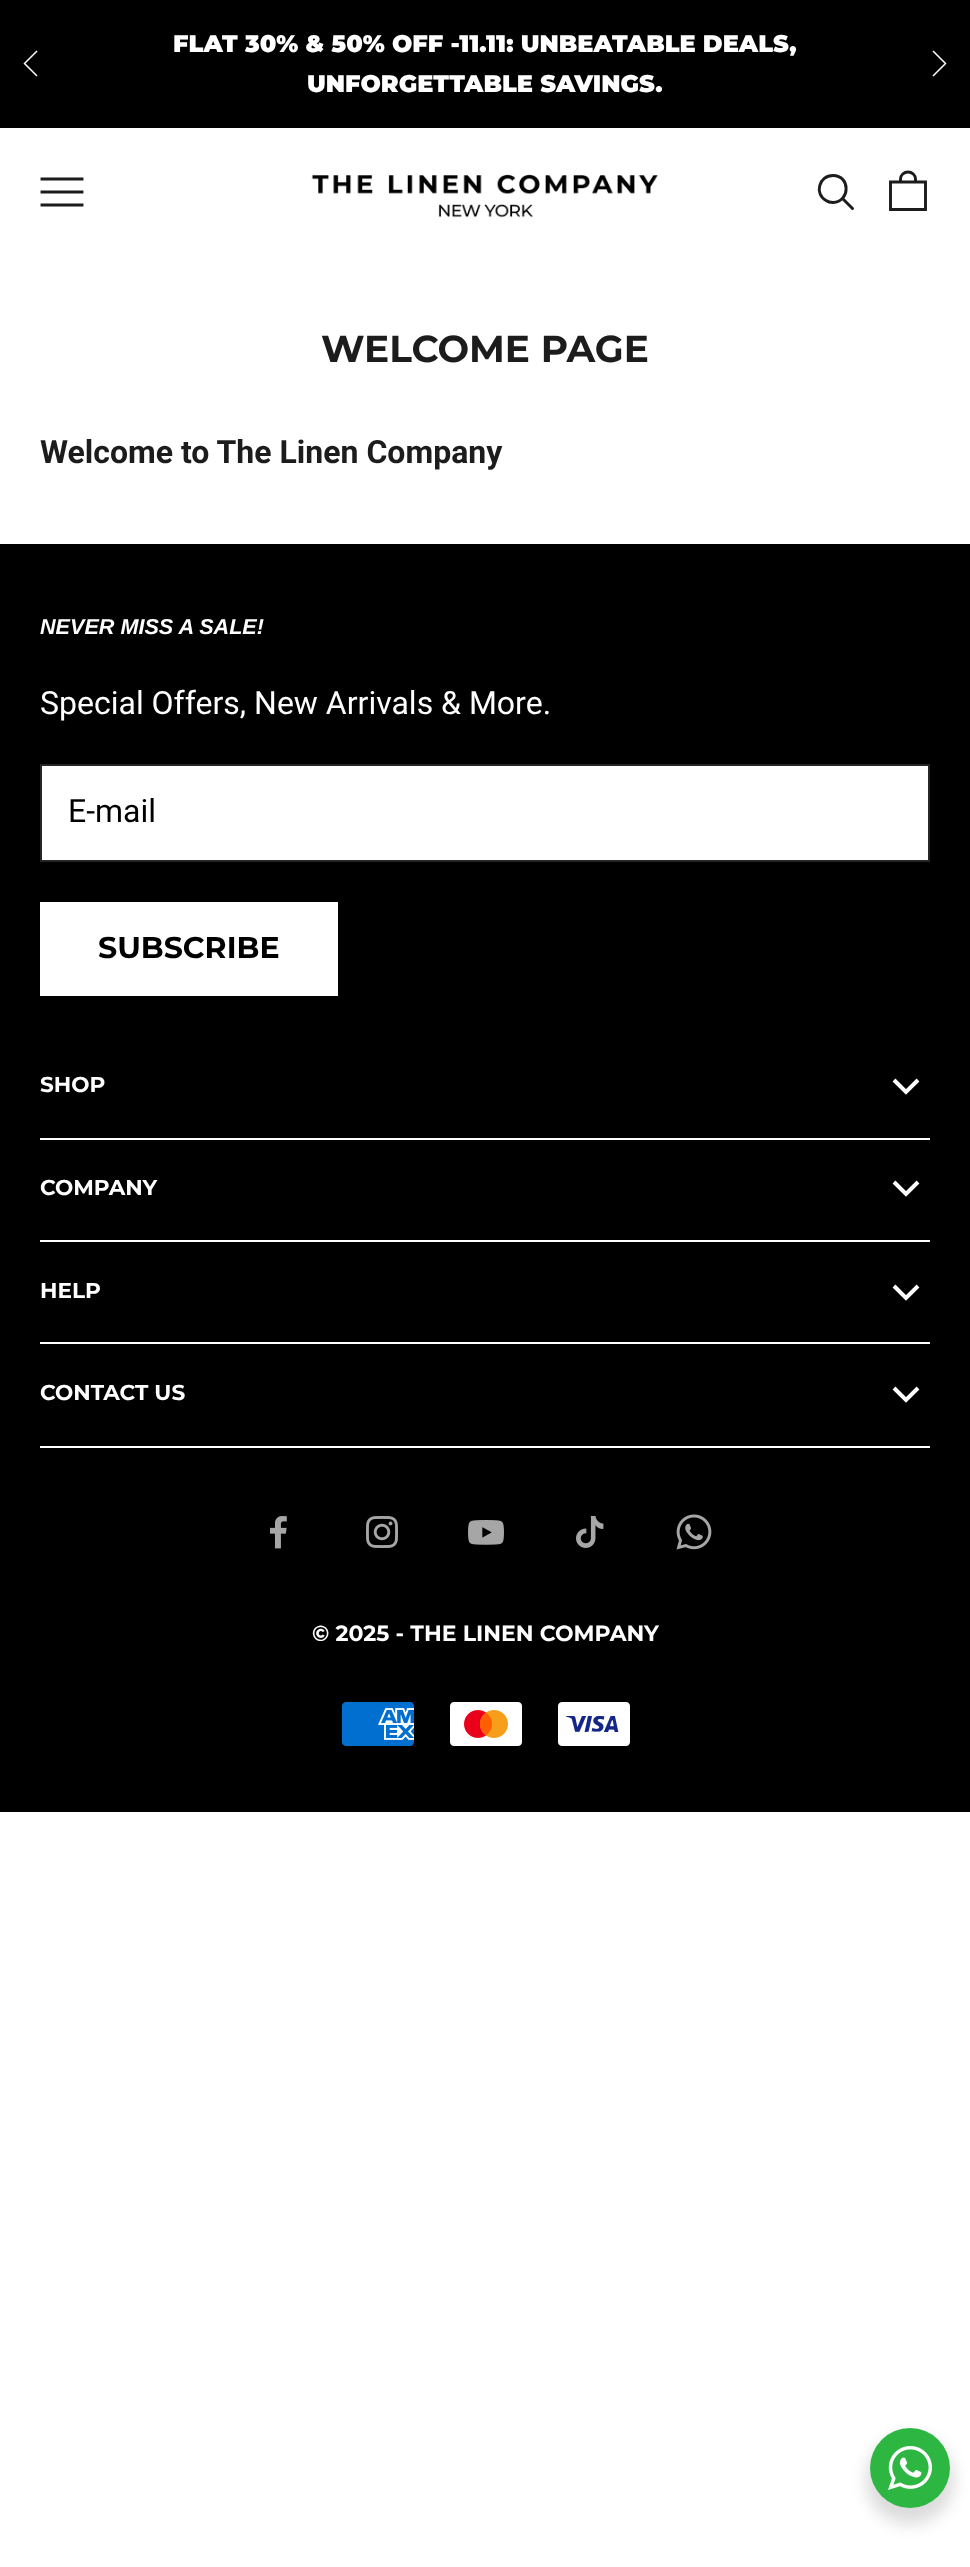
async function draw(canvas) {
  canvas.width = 970;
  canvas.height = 2567;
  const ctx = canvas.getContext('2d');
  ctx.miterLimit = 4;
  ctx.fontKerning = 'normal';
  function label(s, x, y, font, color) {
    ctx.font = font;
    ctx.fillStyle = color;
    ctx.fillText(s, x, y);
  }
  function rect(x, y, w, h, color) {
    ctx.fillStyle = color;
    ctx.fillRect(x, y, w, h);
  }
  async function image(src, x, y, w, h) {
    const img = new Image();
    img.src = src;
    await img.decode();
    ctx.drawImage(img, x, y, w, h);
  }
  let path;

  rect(0, 0, 970, 2567, '#fff');
  rect(0, 0, 970, 128, '#000');
  path = new Path2D('M36.5 51.5L24.5 63.5L36.5 75.5');
  ctx.strokeStyle = '#fff';
  ctx.lineWidth = 1.5;
  ctx.lineCap = 'square';
  ctx.stroke(path);
  label('FLAT 30% & 50% OFF -11.11: UNBEATABLE DEALS,', 173, 52, '900 24px Montserrat', '#fff');
  label('UNFORGETTABLE SAVINGS.', 307, 92, '900 24px Montserrat', '#fff');
  path = new Path2D('M933.5 75.5L945.5 63.5L933.5 51.5');
  ctx.stroke(path);
  path = new Path2D('M42 205H82M42 192H82M42 179H82');
  ctx.strokeStyle = '#1c1c1c';
  ctx.lineWidth = 2.9;
  ctx.stroke(path);
  await image('assets/img1.png', 311, 174, 347, 44);
  path = new Path2D('M833 175.5C819 175.5 814 194 826 200.5C828 202 830.5 202.5 833 202.5C850.5 201.5 850.5 175.5 833 175.5Z');
  ctx.lineCap = 'butt';
  ctx.stroke(path);
  path = new Path2D('M843 199L852.5 208.5');
  ctx.lineCap = 'round';
  ctx.stroke(path);
  path = new Path2D('M925.5 209.5V182H890.5V209.5ZM900.5 181V179C900.5 175 904 172 908 172C912 172 915.5 175 915.5 179V181');
  ctx.lineCap = 'butt';
  ctx.stroke(path);
  label('WELCOME PAGE', 321, 362, 'bold 37.5px Montserrat', '#1c1c1c');
  label('Welcome to The Linen Company', 40, 463, 'bold 32px Roboto', '#1c1c1c');
  rect(0, 544, 970, 1268, '#000');
  label('NEVER MISS A SALE!', 40, 634, 'italic bold 21.6px Liberation Sans', '#fff');
  label('Special Offers, New Arrivals & More.', 40, 714, '32px Roboto', '#fff');
  ctx.beginPath();
  ctx.rect(41, 765, 888, 96);
  ctx.fill();
  ctx.strokeStyle = '#262626';
  ctx.lineWidth = 2;
  ctx.stroke();
  label('E-mail', 68, 822, '32px Roboto', '#000');
  ctx.fillStyle = '#fff';
  ctx.beginPath();
  ctx.rect(41, 903, 296, 92);
  ctx.fill();
  ctx.strokeStyle = '#fff';
  ctx.stroke();
  label('SUBSCRIBE', 98, 958, 'bold 30px Montserrat', '#000');
  rect(40, 1138, 890, 2, '#fff');
  label('SHOP', 40, 1092, 'bold 21.6px Montserrat', '#fff');
  path = new Path2D('M918 1080L906 1092L894 1080');
  ctx.lineWidth = 4;
  ctx.stroke(path);
  rect(40, 1240, 890, 2, '#fff');
  label('COMPANY', 40, 1195, 'bold 21.6px Montserrat', '#fff');
  path = new Path2D('M918 1182L906 1194L894 1182');
  ctx.stroke(path);
  rect(40, 1342, 890, 2, '#fff');
  label('HELP', 40, 1298, 'bold 21.6px Montserrat', '#fff');
  path = new Path2D('M918 1286L906 1298L894 1286');
  ctx.stroke(path);
  rect(40, 1446, 890, 2, '#fff');
  label('CONTACT US', 40, 1400, 'bold 21.6px Montserrat', '#fff');
  path = new Path2D('M918 1388L906 1400L894 1388');
  ctx.stroke(path);
  await image('assets/img2.png', 270, 1516, 17, 33);
  await image('assets/img3.png', 366, 1516, 32, 32);
  await image('assets/img4.png', 468, 1520, 36, 25);
  await image('assets/img5.png', 576, 1516, 28, 32);
  await image('assets/img6.png', 676, 1514, 36, 36);
  label('© 2025 - THE LINEN COMPANY', 312, 1641, 'bold 22px Montserrat', '#fff');
  await image('assets/img7.png', 342, 1702, 72, 44);
  await image('assets/img8.png', 450, 1702, 72, 44);
  await image('assets/img9.png', 558, 1702, 72, 44);
  ctx.fillStyle = '#00000024';
  ctx.filter = 'blur(8px)';
  ctx.beginPath();
  ctx.roundRect(866, 2436, 88, 88, 44);
  ctx.fill();
  ctx.filter = 'none';
  ctx.fillStyle = '#2db742';
  ctx.beginPath();
  ctx.arc(910, 2468, 40, 0, 2 * Math.PI);
  ctx.fill();
  await image('assets/img10.png', 888, 2446, 44, 44);
}

draw(document.querySelector('canvas'));
